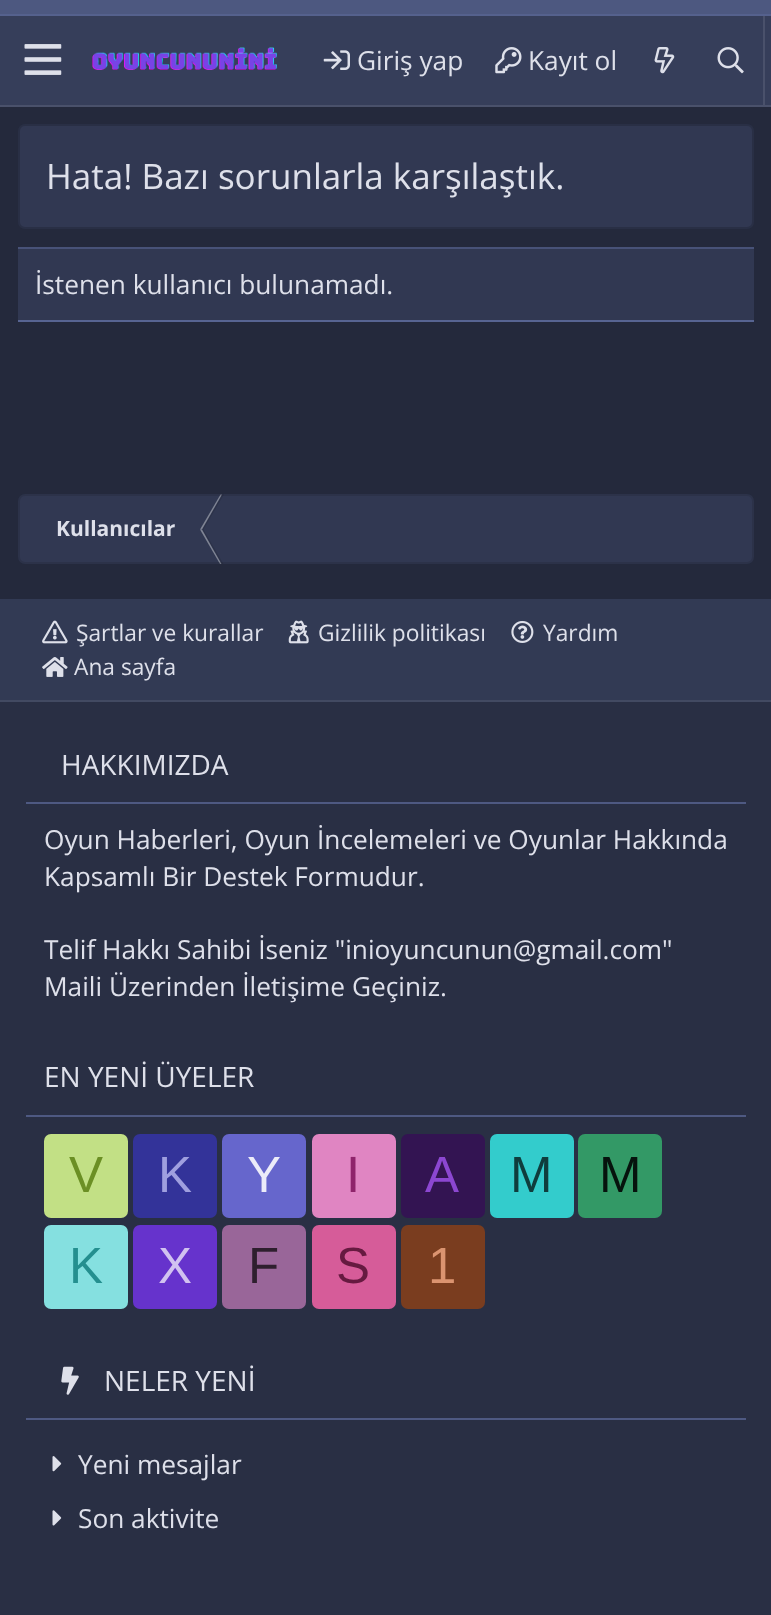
async function draw(canvas) {
  canvas.width = 771;
  canvas.height = 1615;
  const ctx = canvas.getContext('2d');
  ctx.miterLimit = 4;
  ctx.fontKerning = 'normal';
  function label(s, x, y, font, color) {
    ctx.font = font;
    ctx.fillStyle = color;
    ctx.fillText(s, x, y);
  }
  function rect(x, y, w, h, color) {
    ctx.fillStyle = color;
    ctx.fillRect(x, y, w, h);
  }
  function roundedRect(x, y, w, h, r, color) {
    ctx.fillStyle = color;
    ctx.beginPath();
    ctx.roundRect(x, y, w, h, r);
    ctx.fill();
  }
  async function image(src, x, y, w, h) {
    const img = new Image();
    img.src = src;
    await img.decode();
    ctx.drawImage(img, x, y, w, h);
  }
  let path;

  rect(0, 0, 771, 1615, '#24293c');
  rect(0, 0, 771, 14, '#4d5880');
  rect(0, 14, 771, 2, '#55618d');
  rect(0, 16, 771, 89, '#363e5a');
  rect(0, 105, 771, 2, '#4a516b');
  await image('assets/img1.png', 24, 44, 38, 31);
  await image('assets/img2.png', 92, 47, 185, 23);
  await image('assets/img3.png', 323, 50, 27, 20);
  label('Giriş yap', 357, 70, '26.25px Open Sans', '#dee0ea');
  await image('assets/img4.png', 495, 47, 27, 27);
  label('Kayıt ol', 528, 70, '26.25px Open Sans', '#dee0ea');
  rect(763, 16, 2, 89, '#4a516b');
  await image('assets/img5.png', 654, 47, 21, 27);
  await image('assets/img6.png', 717, 47, 27, 27);
  roundedRect(18, 124, 736, 105, 7, '#313852');
  ctx.beginPath();
  ctx.roundRect(19, 125, 734, 103, 6);
  ctx.strokeStyle = '#00000026';
  ctx.lineWidth = 2;
  ctx.stroke();
  label('Hata! Bazı sorunlarla karşılaştık.', 46, 189, '35px Open Sans', '#dee0ea');
  rect(18, 249, 736, 71, '#313852');
  rect(18, 247, 736, 2, '#485278');
  rect(18, 320, 736, 2, '#576492');
  label('İstenen kullanıcı bulunamadı.', 35, 294, '26.25px Open Sans', '#dee0ea');
  roundedRect(18, 494, 736, 70, 7, '#313852');
  ctx.fillStyle = '#7f8494';
  path = new Path2D('M220.5 494.5H222L202 529.5H200Z');
  ctx.fill(path);
  ctx.fillStyle = '#0000001a';
  path = new Path2D('M222 494.5H224L203.5 529.5H202Z');
  ctx.fill(path);
  ctx.fillStyle = '#7f8494';
  path = new Path2D('M200 529.5H202L221.5 564H220Z');
  ctx.fill(path);
  ctx.fillStyle = '#0000001a';
  path = new Path2D('M202 529.5H203.5L223.5 564H221.5Z');
  ctx.fill(path);
  ctx.beginPath();
  ctx.roundRect(19, 495, 734, 68, 6);
  ctx.strokeStyle = '#0000001a';
  ctx.stroke();
  label('Kullanıcılar', 56, 536, 'bold 21px Open Sans', '#dee0ea');
  rect(0, 599, 771, 101, '#323a54');
  rect(0, 700, 771, 2, '#424a62');
  await image('assets/img7.png', 42, 620, 26, 24);
  label('Şartlar ve kurallar', 76, 641, '22.75px Open Sans', '#dee0ea');
  await image('assets/img8.png', 288, 620, 21, 24);
  label('Gizlilik politikası', 318, 641, '22.75px Open Sans', '#dee0ea');
  await image('assets/img9.png', 511, 620, 23, 23);
  label('Yardım', 543, 641, '22.75px Open Sans', '#dee0ea');
  await image('assets/img10.png', 42, 657, 26, 20);
  label('Ana sayfa', 74, 675, '22.75px Open Sans', '#dee0ea');
  rect(0, 702, 771, 913, '#292f44');
  rect(26, 802, 720, 2, '#4e5982');
  label('HAKKIMIZDA', 61, 775, '28px Open Sans', '#dee0ea');
  label('Oyun Haberleri, Oyun İncelemeleri ve Oyunlar Hakkında', 44, 849, '26.25px Open Sans', '#dee0ea');
  label('Kapsamlı Bir Destek Formudur.', 44, 886, '26.25px Open Sans', '#dee0ea');
  label('Telif Hakkı Sahibi İseniz "inioyuncunun@gmail.com"', 44, 959, '26.25px Open Sans', '#dee0ea');
  label('Maili Üzerinden İletişime Geçiniz.', 44, 996, '26.25px Open Sans', '#dee0ea');
  rect(26, 1115, 720, 2, '#4e5982');
  label('EN YENİ ÜYELER', 44, 1087, '28px Open Sans', '#dee0ea');
  roundedRect(44, 1134, 84, 84, 7, '#c2e085');
  label('V', 69, 1192, '51px Liberation Sans', '#6b8f24');
  roundedRect(133, 1134, 84, 84, 7, '#339');
  label('K', 158, 1192, '51px Liberation Sans', '#9f9fdf');
  roundedRect(222, 1134, 84, 84, 7, '#66c');
  label('Y', 247, 1192, '51px Liberation Sans', '#ececf9');
  roundedRect(312, 1134, 84, 84, 7, '#e085c2');
  label('I', 346, 1192, '51px Liberation Sans', '#8f246b');
  roundedRect(401, 1134, 84, 84, 7, '#331452');
  label('A', 425, 1192, '51px Liberation Sans', '#8c47d1');
  roundedRect(490, 1134, 84, 84, 7, '#3cc');
  label('M', 510, 1192, '51px Liberation Sans', '#0f3d3d');
  roundedRect(578, 1134, 84, 84, 7, '#396');
  label('M', 599, 1192, '51px Liberation Sans', '#06130d');
  roundedRect(44, 1225, 84, 84, 7, '#85e0e0');
  label('K', 69, 1283, '51px Liberation Sans', '#248f8f');
  roundedRect(133, 1225, 84, 84, 7, '#63c');
  label('X', 158, 1283, '51px Liberation Sans', '#d1c2f0');
  roundedRect(222, 1225, 84, 84, 7, '#969');
  label('F', 248, 1283, '51px Liberation Sans', '#2e1f2e');
  roundedRect(312, 1225, 84, 84, 7, '#d65c99');
  label('S', 336, 1283, '51px Liberation Sans', '#661a40');
  roundedRect(401, 1225, 84, 84, 7, '#7a3d1f');
  label('1', 428, 1283, '51px Liberation Sans', '#db9470');
  rect(26, 1418, 720, 2, '#4e5982');
  await image('assets/img11.png', 61, 1366, 18, 29);
  label('NELER YENİ', 104, 1391, '28px Open Sans', '#dee0ea');
  await image('assets/img12.png', 52, 1456, 10, 16);
  label('Yeni mesajlar', 78, 1474, '26.25px Open Sans', '#dee0ea');
  await image('assets/img13.png', 52, 1510, 10, 16);
  label('Son aktivite', 78, 1528, '26.25px Open Sans', '#dee0ea');
}

draw(document.querySelector('canvas'));
